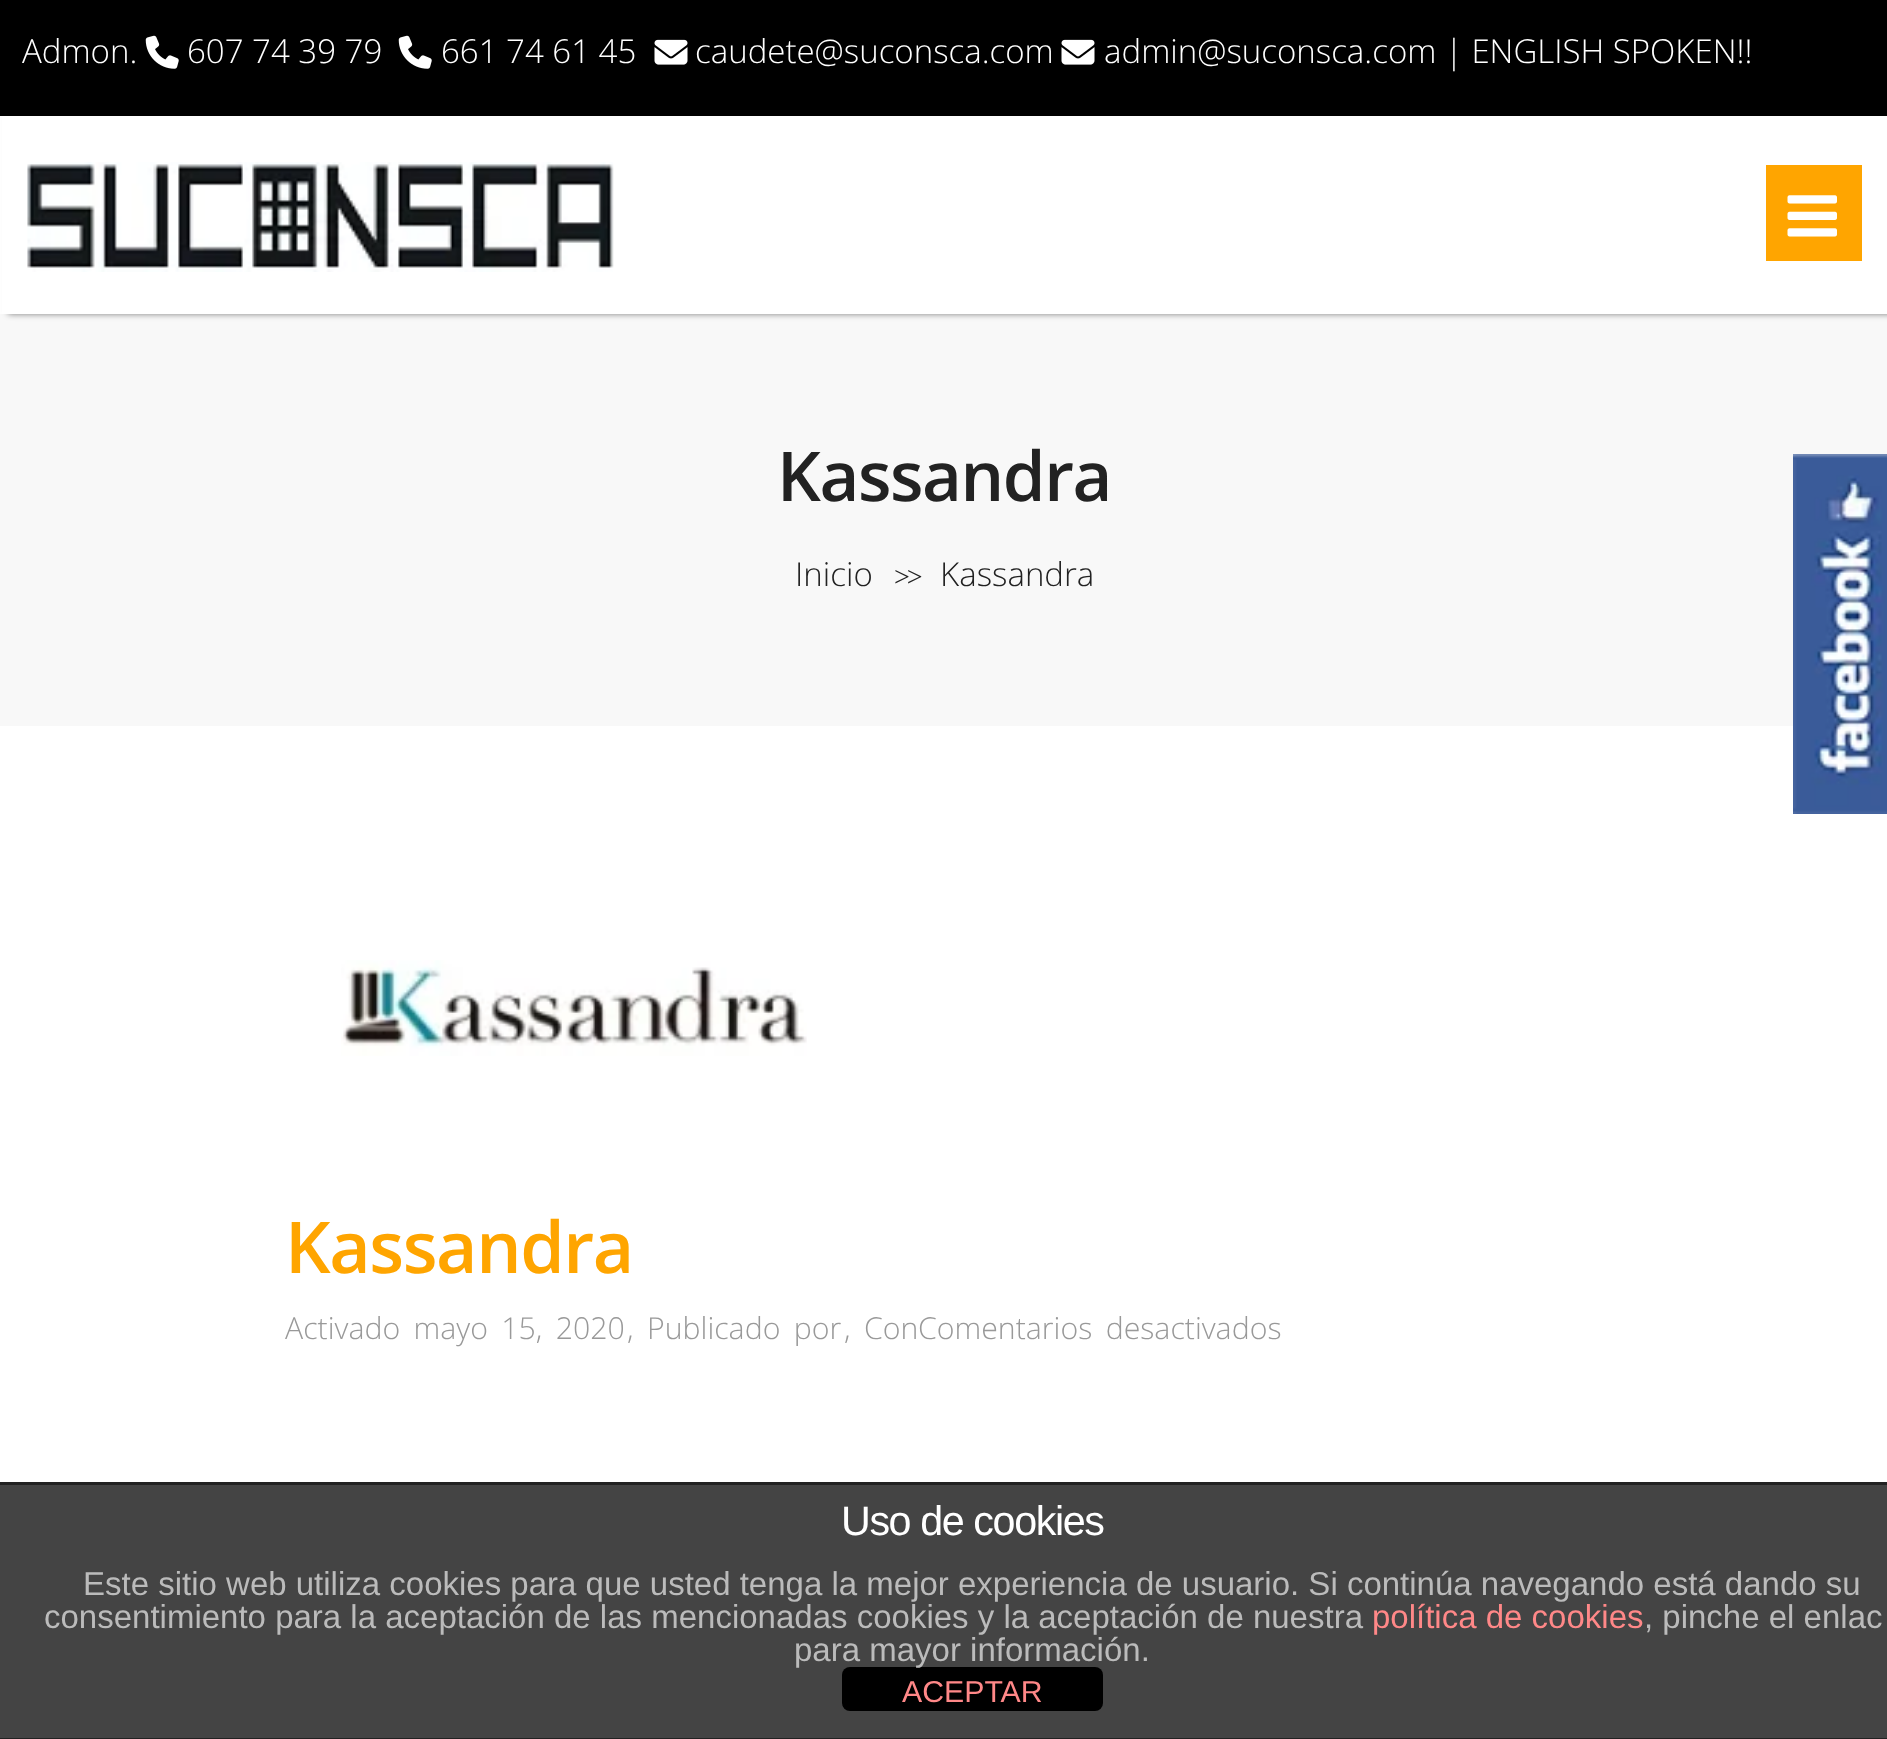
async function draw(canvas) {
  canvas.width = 1887;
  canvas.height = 1739;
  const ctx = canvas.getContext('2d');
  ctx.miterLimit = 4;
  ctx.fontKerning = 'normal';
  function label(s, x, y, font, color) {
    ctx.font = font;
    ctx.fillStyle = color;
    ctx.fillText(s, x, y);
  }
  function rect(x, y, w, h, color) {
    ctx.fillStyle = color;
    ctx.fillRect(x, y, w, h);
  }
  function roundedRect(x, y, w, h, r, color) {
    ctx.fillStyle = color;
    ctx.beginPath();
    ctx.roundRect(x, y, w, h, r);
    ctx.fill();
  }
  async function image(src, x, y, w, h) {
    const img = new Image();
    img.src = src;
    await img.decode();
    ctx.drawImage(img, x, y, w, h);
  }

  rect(0, 0, 1887, 1739, '#fff');
  rect(0, 0, 1887, 116, '#000');
  label('Admon.', 22, 63, '300 33px Open Sans', '#fff');
  await image('assets/img1.png', 145, 35, 34, 34);
  label('607 74 39 79', 187, 63, '300 33px Open Sans', '#fff');
  await image('assets/img1.png', 398, 35, 34, 34);
  label('661 74 61 45', 441, 63, '300 33px Open Sans', '#fff');
  await image('assets/img2.png', 654, 39, 34, 26);
  label('caudete@suconsca.com', 695, 63, '300 33px Open Sans', '#fff');
  await image('assets/img2.png', 1061, 39, 34, 26);
  label('admin@suconsca.com | ENGLISH SPOKEN!!', 1104, 63, '300 33px Open Sans', '#fff');
  rect(0, 314, 1887, 412, '#f8f8f8');
  ctx.fillStyle = '#00000080';
  ctx.filter = 'blur(3px)';
  ctx.beginPath();
  ctx.rect(8, 116, 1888, 198);
  ctx.fill();
  ctx.filter = 'none';
  rect(2, 116, 1885, 198, '#fff');
  await image('assets/img3.png', 27, 162, 587, 110);
  rect(1766, 165, 96, 96, '#ffa500');
  await image('assets/img4.png', 1787, 195, 50, 42);
  ctx.letterSpacing = '-1.4px';
  label('Kassandra', 777, 501, '600 68.75px Open Sans', '#222');
  ctx.letterSpacing = '0px';
  label('Inicio', 795, 586, '300 33px Open Sans', '#222');
  ctx.letterSpacing = '-3px';
  label('>>', 894, 586, '28px Liberation Serif', '#222');
  ctx.letterSpacing = '0px';
  label('Kassandra', 940, 586, '300 33px Open Sans', '#222');
  await image('assets/img5.png', 341, 960, 466, 96);
  ctx.letterSpacing = '-1.4px';
  label('Kassandra', 285, 1273, '600 71.5px Open Sans', '#ffa500');
  ctx.letterSpacing = '0px';
  ctx.wordSpacing = '5.5px';
  label('Activado mayo 15, 2020', 285, 1339, '300 30.25px Open Sans', '#999');
  ctx.wordSpacing = '0px';
  label(',', 627, 1339, '300 30.25px Open Sans', '#999');
  ctx.wordSpacing = '5.5px';
  label('Publicado por', 647, 1339, '300 30.25px Open Sans', '#999');
  ctx.wordSpacing = '0px';
  label(',', 844, 1339, '300 30.25px Open Sans', '#999');
  label('Con', 864, 1339, '300 30.25px Open Sans', '#999');
  ctx.wordSpacing = '5.5px';
  label('Comentarios desactivados', 918, 1339, '300 30.25px Open Sans', '#999');
  await image('assets/img6.png', 1793, 454, 94, 360);
  rect(0, 1485, 1887, 253, '#444');
  rect(0, 1482, 1887, 3, '#222');
  rect(0, 1738, 1887, 1, '#222');
  ctx.letterSpacing = '-1.4px';
  ctx.wordSpacing = '0px';
  label('Uso de cookies', 841, 1535, '41.25px Liberation Sans', '#fff');
  ctx.letterSpacing = '0px';
  label('Este sitio web utiliza cookies para que usted tenga la mejor experiencia de usuario. Si continúa navegando está dando su', 83, 1595, '33px Liberation Sans', '#bbb');
  label('consentimiento para la aceptación de las mencionadas cookies y la aceptación de nuestra', 44, 1628, '33px Liberation Sans', '#bbb');
  label('política de cookies', 1372, 1628, '33px Liberation Sans', '#f88');
  label(', pinche el enlac', 1644, 1628, '33px Liberation Sans', '#bbb');
  roundedRect(842, 1667, 261, 44, 8, '#000');
  label('para mayor información.', 794, 1661, '33px Liberation Sans', '#bbb');
  label('ACEPTAR', 902, 1702, '30.25px Liberation Sans', '#f88');
}

draw(document.querySelector('canvas'));
